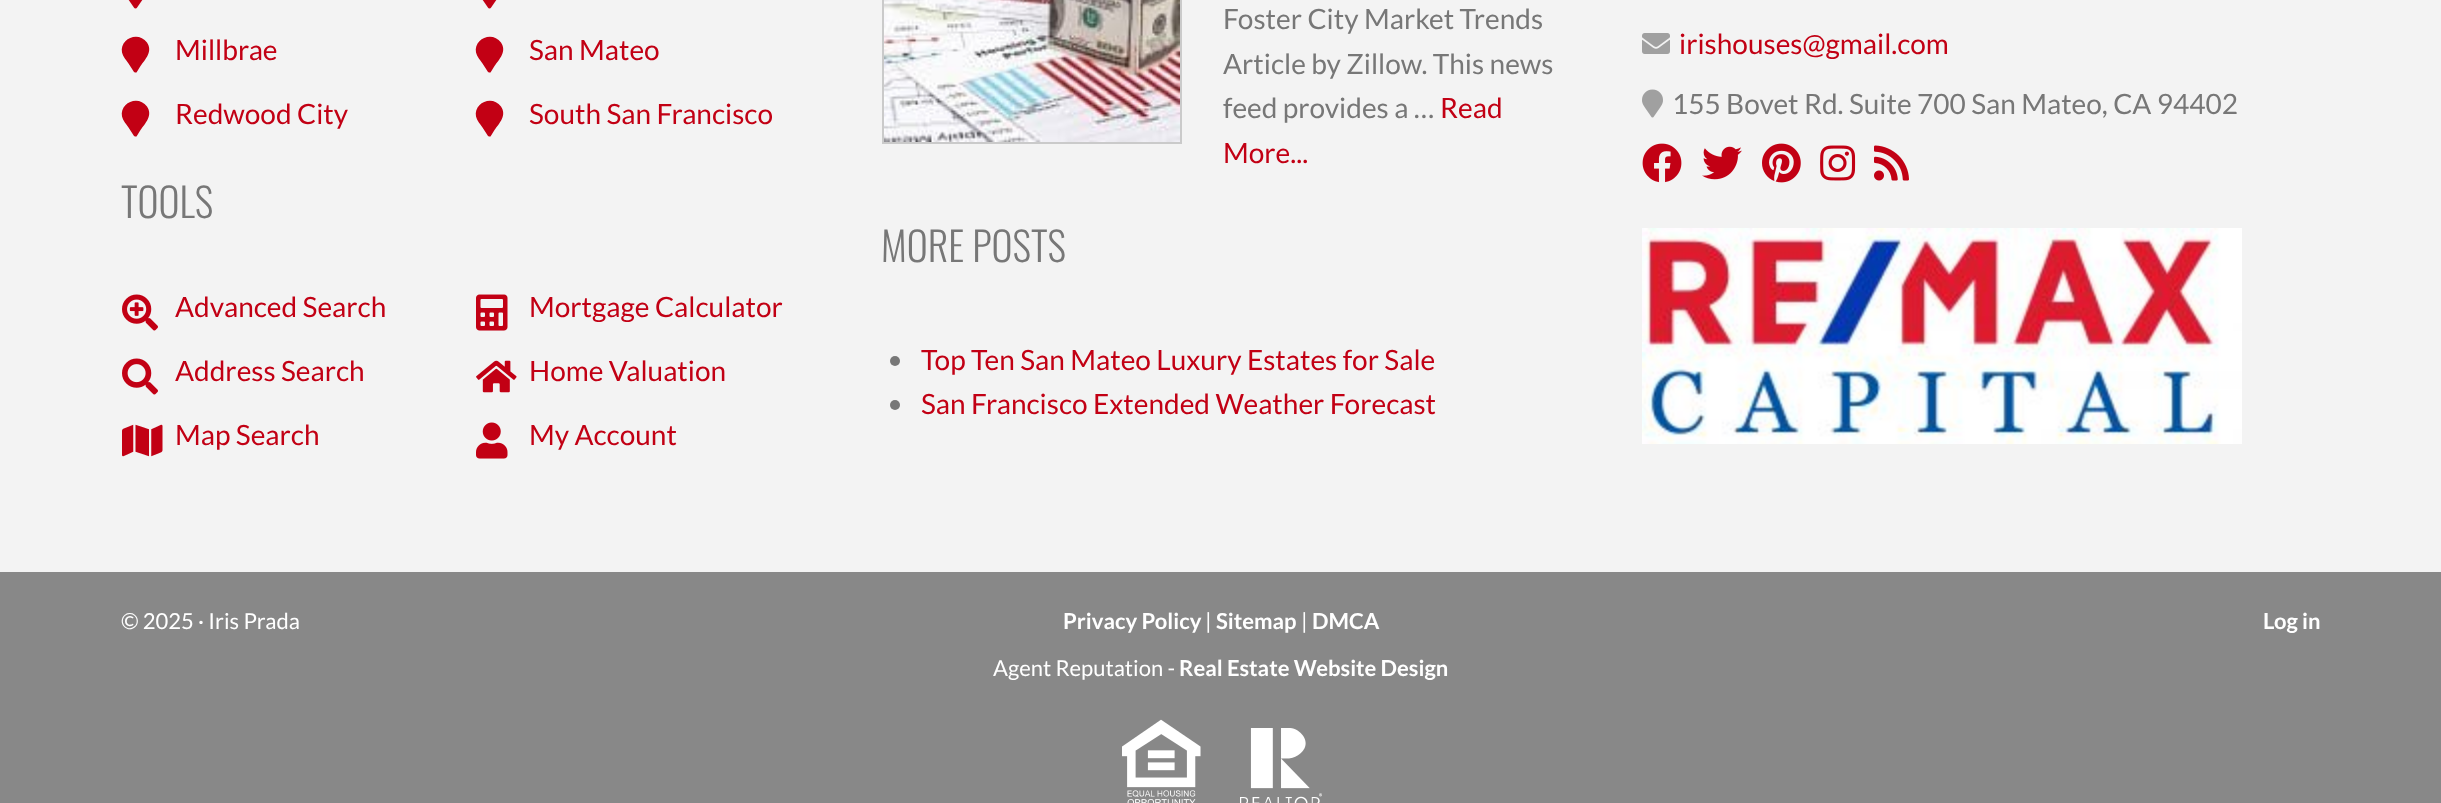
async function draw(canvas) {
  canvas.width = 2441;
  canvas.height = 803;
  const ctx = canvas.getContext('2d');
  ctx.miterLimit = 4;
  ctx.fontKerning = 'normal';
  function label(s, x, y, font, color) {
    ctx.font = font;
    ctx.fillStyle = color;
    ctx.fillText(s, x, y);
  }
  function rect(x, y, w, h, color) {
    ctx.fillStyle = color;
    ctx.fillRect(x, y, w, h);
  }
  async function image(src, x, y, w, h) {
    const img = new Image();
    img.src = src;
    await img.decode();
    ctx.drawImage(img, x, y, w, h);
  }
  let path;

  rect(0, 0, 2441, 803, '#f3f3f3');
  await image('assets/img1.png', 128, 0, 15, 9);
  await image('assets/img1.png', 482, 0, 15, 9);
  ctx.fillStyle = '#c20014';
  path = new Path2D('M134 72L128.5 63.5C126 60 123 56.5 122 52.5C119.5 38.5 138.5 30.5 147 42.5C153 51.5 145.5 59 140.5 66L136.5 72.5C135.5 72.5 134.5 72.5 134 72Z');
  ctx.fill(path);
  label('Millbrae', 175, 60, '28px Lato', '#c20014');
  path = new Path2D('M488 72L482.5 63.5C480 60 477 56.5 476 52.5C473.5 38.5 492.5 30.5 501 42.5C507 51.5 499.5 59 494.5 66L490.5 72.5C489.5 72.5 488.5 72.5 488 72Z');
  ctx.fill(path);
  label('San Mateo', 529, 60, '28px Lato', '#c20014');
  path = new Path2D('M134 136L128.5 127.5C126 124 123 120.5 122 116.5C119.5 102.5 138.5 94.5 147 106.5C153 115.5 145.5 123 140.5 130L136.5 136.5C135.5 136.5 134.5 136.5 134 136Z');
  ctx.fill(path);
  label('Redwood City', 175, 124, '28px Lato', '#c20014');
  path = new Path2D('M488 136L482.5 127.5C480 124 477 120.5 476 116.5C473.5 102.5 492.5 94.5 501 106.5C507 115.5 499.5 123 494.5 130L490.5 136.5C489.5 136.5 488.5 136.5 488 136Z');
  ctx.fill(path);
  label('South San Francisco', 529, 124, '28px Lato', '#c20014');
  label('TOOLS', 121, 218, '300 40px Oswald', '#777');
  await image('assets/img2.png', 122, 294, 36, 37);
  label('Advanced Search', 175, 317, '28px Lato', '#c20014');
  await image('assets/img3.png', 476, 294, 32, 37);
  label('Mortgage Calculator', 529, 317, '28px Lato', '#c20014');
  await image('assets/img4.png', 122, 358, 36, 37);
  label('Address Search', 175, 381, '28px Lato', '#c20014');
  await image('assets/img5.png', 476, 360, 41, 33);
  label('Home Valuation', 529, 381, '28px Lato', '#c20014');
  await image('assets/img6.png', 122, 424, 41, 33);
  label('Map Search', 175, 445, '28px Lato', '#c20014');
  await image('assets/img7.png', 476, 422, 32, 37);
  label('My Account', 529, 445, '28px Lato', '#c20014');
  ctx.strokeStyle = '#cacaca';
  ctx.lineWidth = 2;
  ctx.strokeRect(883, -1, 298, 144);
  await image('assets/img8.png', 884, 0, 296, 142);
  label('Foster City Market Trends', 1223, 29, '28px Lato', '#777');
  label('Article by Zillow. This news', 1223, 74, '28px Lato', '#777');
  label('feed provides a …', 1223, 118, '28px Lato', '#777');
  label('Read', 1440, 118, '28px Lato', '#c20014');
  label('More...', 1223, 163, '28px Lato', '#c20014');
  label('MORE POSTS', 881, 262, '300 40px Oswald', '#777');
  ctx.beginPath();
  ctx.arc(895, 361, 5, 0, 2 * Math.PI);
  ctx.fill();
  label('Top Ten San Mateo Luxury Estates for Sale', 921, 370, '28px Lato', '#c20014');
  ctx.fillStyle = '#777';
  ctx.beginPath();
  ctx.arc(895, 405, 5, 0, 2 * Math.PI);
  ctx.fill();
  label('San Francisco Extended Weather Forecast', 921, 414, '28px Lato', '#c20014');
  await image('assets/img9.png', 1642, 33, 28, 21);
  label('irishouses@gmail.com', 1679, 54, '28px Lato', '#c20014');
  await image('assets/img10.png', 1642, 89, 21, 29);
  label('155 Bovet Rd. Suite 700 San Mateo, CA 94402', 1672, 114, '28px Lato', '#777');
  await image('assets/img11.png', 1642, 143, 40, 40);
  await image('assets/img12.png', 1702, 146, 40, 34);
  await image('assets/img13.png', 1762, 143, 39, 40);
  await image('assets/img14.png', 1820, 145, 36, 36);
  await image('assets/img15.png', 1874, 145, 35, 36);
  await image('assets/img16.png', 1642, 228, 600, 216);
  rect(0, 572, 2441, 231, '#888');
  label('© 2025 · Iris Prada', 121, 629, '22px Lato', '#fff');
  label('Privacy Policy', 1063, 629, 'bold 22px Lato', '#fff');
  label('|', 1205, 629, '22px Lato', '#fff');
  label('Sitemap', 1216, 629, 'bold 22px Lato', '#fff');
  label('|', 1301, 629, '22px Lato', '#fff');
  label('DMCA', 1312, 629, 'bold 22px Lato', '#fff');
  label('Agent Reputation -', 993, 676, '22px Lato', '#fff');
  label('Real Estate Website Design', 1179, 676, 'bold 22px Lato', '#fff');
  await image('assets/img17.png', 1122, 719, 79, 84);
  await image('assets/img18.png', 1240, 728, 82, 75);
  label('Log in', 2263, 629, 'bold 22px Lato', '#fff');
}

draw(document.querySelector('canvas'));
